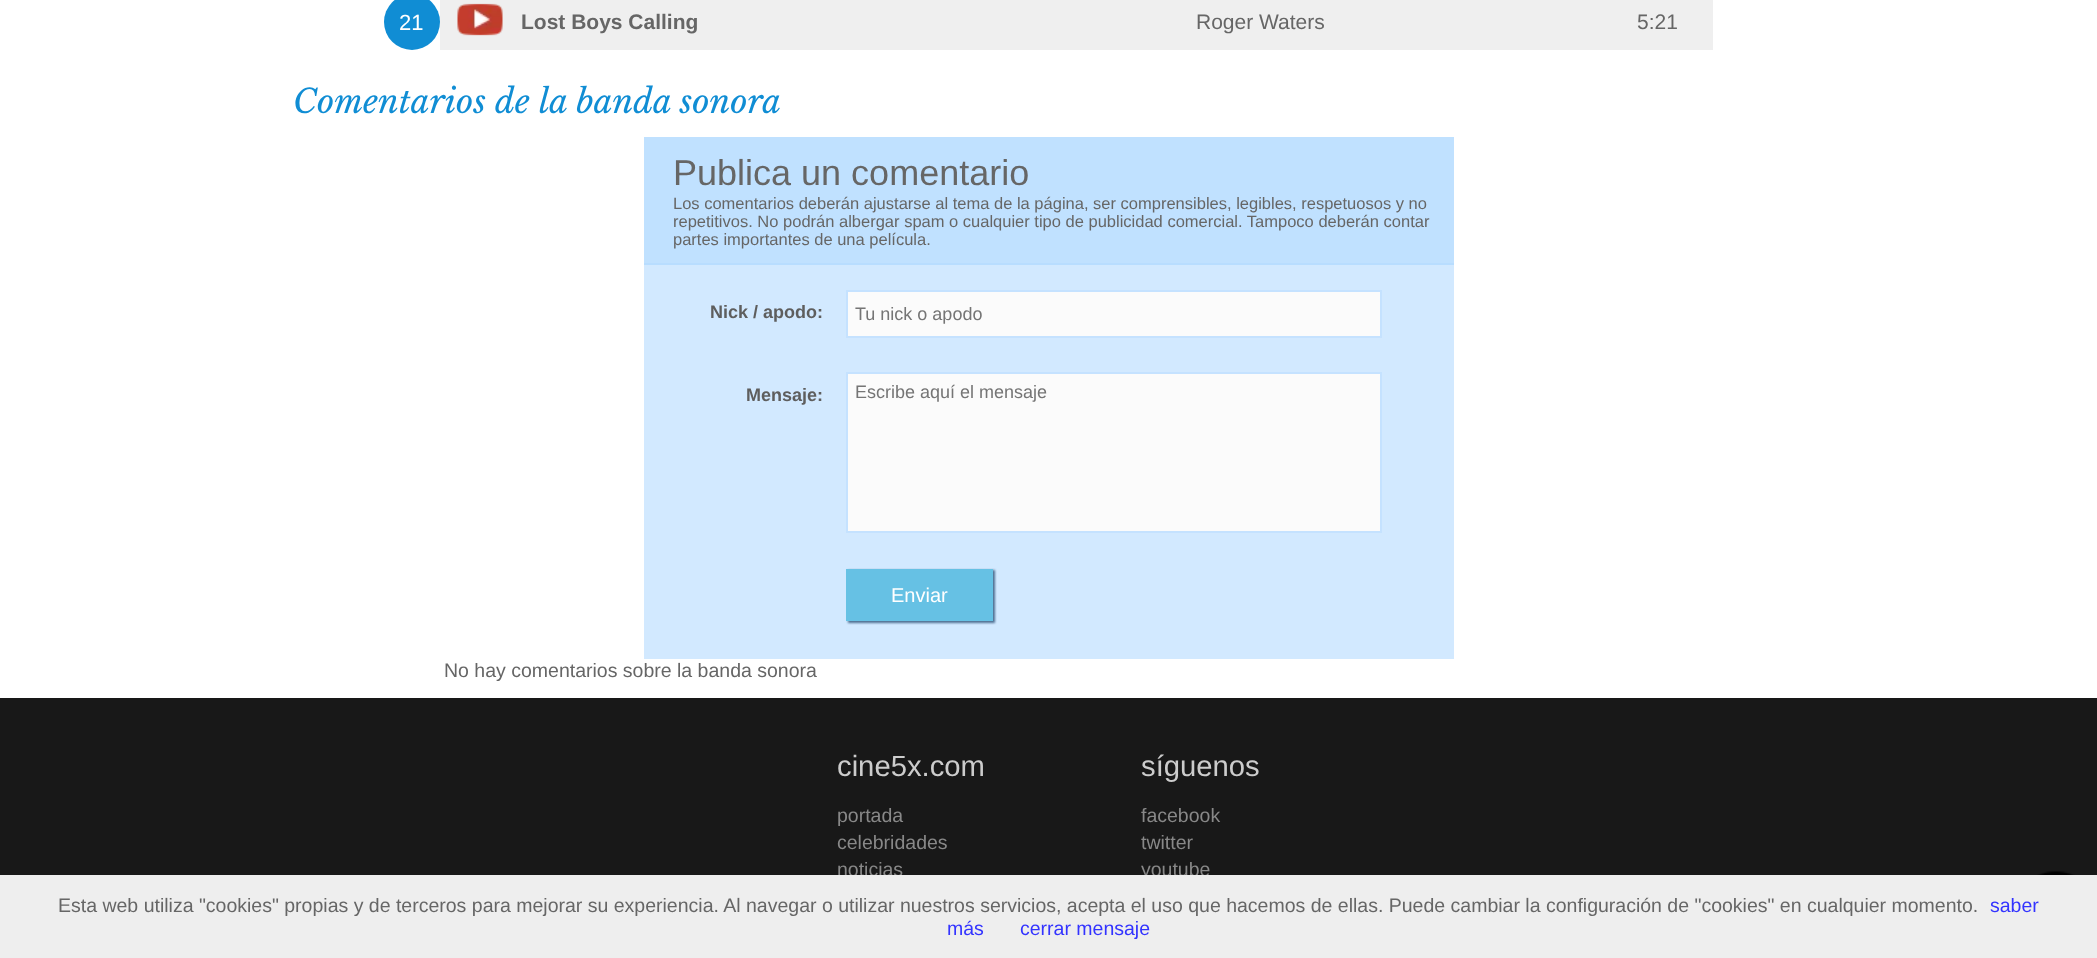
async function draw(canvas) {
  canvas.width = 2097;
  canvas.height = 958;
  const ctx = canvas.getContext('2d');
  ctx.miterLimit = 4;
  ctx.fontKerning = 'normal';
  function label(s, x, y, font, color) {
    ctx.font = font;
    ctx.fillStyle = color;
    ctx.fillText(s, x, y);
  }
  function rect(x, y, w, h, color) {
    ctx.fillStyle = color;
    ctx.fillRect(x, y, w, h);
  }
  async function image(src, x, y, w, h) {
    const img = new Image();
    img.src = src;
    await img.decode();
    ctx.drawImage(img, x, y, w, h);
  }

  rect(0, 0, 2097, 958, '#fff');
  rect(440, 0, 1273, 50, '#efefef');
  await image('assets/img1.png', 457, 3, 46, 33);
  ctx.fillStyle = '#108dd4';
  ctx.beginPath();
  ctx.arc(412, 22, 28, 0, 2 * Math.PI);
  ctx.fill();
  label('21', 399, 30, '22px Liberation Sans', '#fff');
  label('Lost Boys Calling', 521, 29, 'bold 21px Liberation Sans', '#666');
  label('Roger Waters', 1196, 29, '21px Liberation Sans', '#666');
  label('5:21', 1637, 29, '21px Liberation Sans', '#666');
  label('Comentarios de la banda sonora', 293, 113, 'italic 33px Libre Baskerville', '#108dd4');
  rect(644, 265, 810, 394, '#d2e9ff');
  rect(644, 137, 810, 126, '#c0e1ff');
  rect(644, 263, 810, 2, '#b8ddff');
  label('Publica un comentario', 673, 185, '36px Liberation Sans', '#666');
  label('Los comentarios deberán ajustarse al tema de la página, ser comprensibles, legibles, respetuosos y no', 673, 209, '16.5px Liberation Sans', '#666');
  label('repetitivos. No podrán albergar spam o cualquier tipo de publicidad comercial. Tampoco deberán contar', 673, 227, '16.5px Liberation Sans', '#666');
  label('partes importantes de una película.', 673, 245, '16.5px Liberation Sans', '#666');
  label('Nick / apodo:', 710, 318, 'bold 18px Liberation Sans', '#5e5e5e');
  ctx.fillStyle = '#fbfbfb';
  ctx.beginPath();
  ctx.rect(847, 291, 534, 46);
  ctx.fill();
  ctx.strokeStyle = '#c5e2ff';
  ctx.lineWidth = 2;
  ctx.stroke();
  label('Tu nick o apodo', 855, 320, '18px Liberation Sans', '#757575');
  label('Mensaje:', 746, 401, 'bold 18px Liberation Sans', '#5e5e5e');
  ctx.fillStyle = '#fbfbfb';
  ctx.beginPath();
  ctx.rect(847, 373, 534, 159);
  ctx.fill();
  ctx.stroke();
  label('Escribe aquí el mensaje', 855, 398, '18px Liberation Sans', '#757575');
  ctx.fillStyle = '#4c6e91';
  ctx.filter = 'blur(1px)';
  ctx.beginPath();
  ctx.rect(848, 570, 147, 53);
  ctx.fill();
  ctx.filter = 'none';
  rect(846, 569, 147, 52, '#66c1e4');
  label('Enviar', 891, 602, '20px Liberation Sans', '#fff');
  label('No hay comentarios sobre la banda sonora', 444, 677, '19.5px Liberation Sans', '#666');
  rect(0, 698, 2097, 177, '#181818');
  label('cine5x.com', 837, 776, '29.25px Liberation Sans', '#ccc');
  label('portada', 837, 822, '19.5px Liberation Sans', '#888');
  label('celebridades', 837, 849, '19.5px Liberation Sans', '#888');
  label('noticias', 837, 876, '19.5px Liberation Sans', '#888');
  label('síguenos', 1141, 776, '29.25px Liberation Sans', '#ccc');
  label('facebook', 1141, 822, '19.5px Liberation Sans', '#888');
  label('twitter', 1141, 849, '19.5px Liberation Sans', '#888');
  label('youtube', 1141, 876, '19.5px Liberation Sans', '#888');
  await image('assets/img2.png', 2037, 871, 38, 4);
  rect(0, 875, 2097, 83, '#eee');
  label('Esta web utiliza "cookies" propias y de terceros para mejorar su experiencia. Al navegar o utilizar nuestros servicios, acepta el uso que hacemos de ellas. Puede cambiar la configuración de "cookies" en cualquier momento.', 58, 912, '19.5px Liberation Sans', '#666');
  label('saber', 1990, 912, '19.5px Liberation Sans', '#33f');
  label('más', 947, 935, '19.5px Liberation Sans', '#33f');
  label('cerrar mensaje', 1020, 935, '19.5px Liberation Sans', '#33f');
}

draw(document.querySelector('canvas'));
